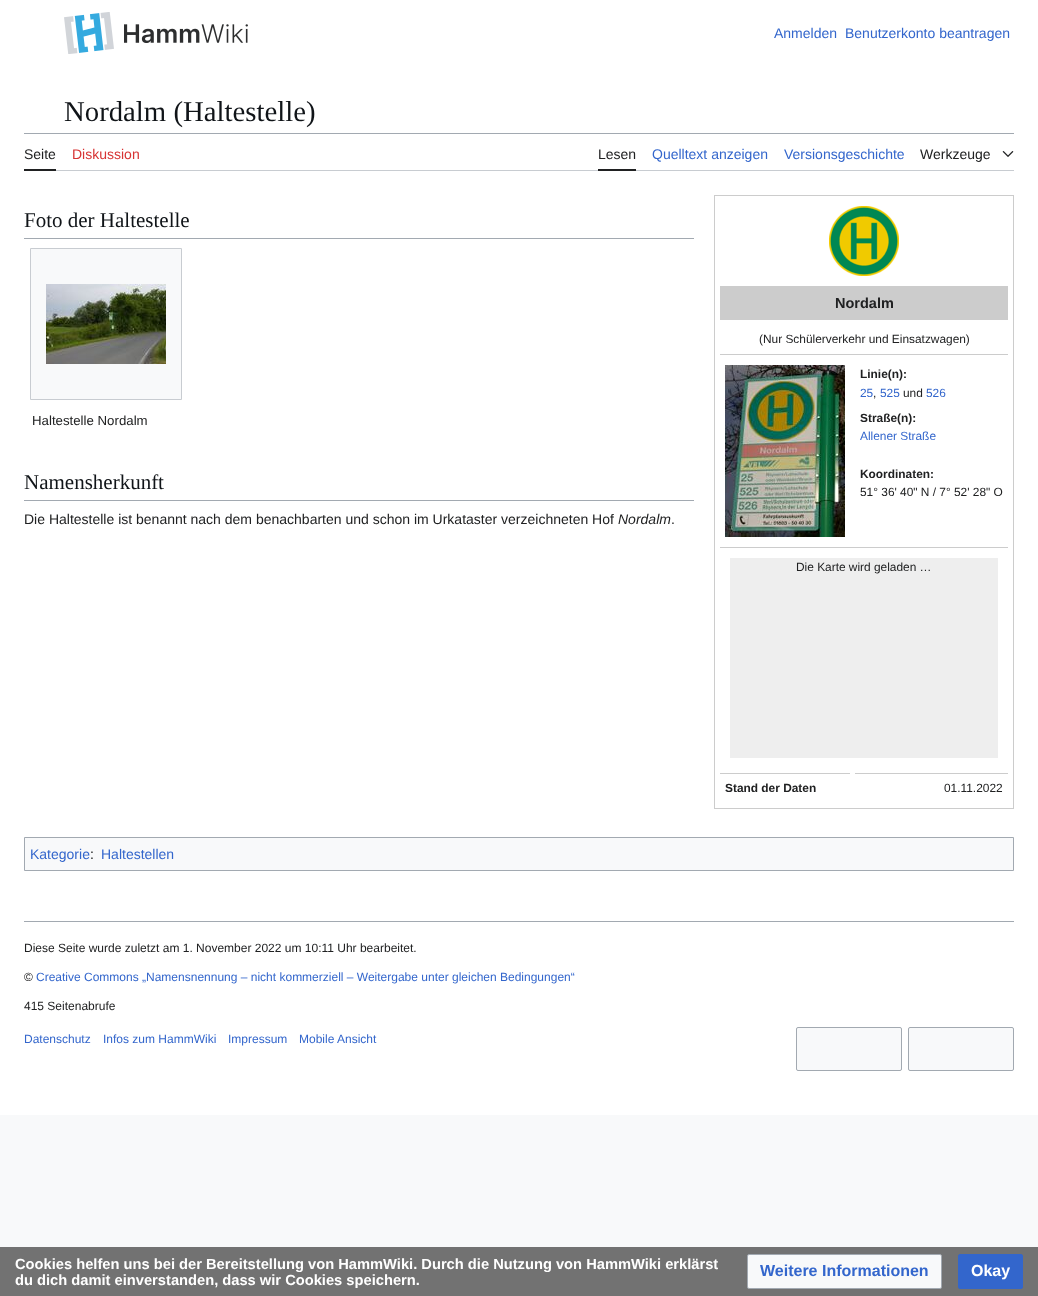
async function draw(canvas) {
  canvas.width = 1038;
  canvas.height = 1296;
  const ctx = canvas.getContext('2d');
  ctx.miterLimit = 4;
  ctx.fontKerning = 'normal';
  function label(s, x, y, font, color) {
    ctx.font = font;
    ctx.fillStyle = color;
    ctx.fillText(s, x, y);
  }
  function rect(x, y, w, h, color) {
    ctx.fillStyle = color;
    ctx.fillRect(x, y, w, h);
  }
  async function image(src, x, y, w, h) {
    const img = new Image();
    img.src = src;
    await img.decode();
    ctx.drawImage(img, x, y, w, h);
  }

  rect(0, 0, 1038, 1296, '#f8f9fa');
  rect(0, 0, 1038, 1115, '#fff');
  await image('assets/img1.png', 64, 12, 50, 42);
  await image('assets/img2.png', 124, 24, 124, 19);
  label('Anmelden', 774, 38, '14px Liberation Sans', '#36c');
  label('Benutzerkonto beantragen', 845, 38, '14px Liberation Sans', '#36c');
  label('Nordalm (Haltestelle)', 64, 121, '28.75px Liberation Serif', '#101418');
  rect(24, 133, 990, 1, '#a2a9b1');
  rect(56, 170, 958, 1, '#c8ccd1');
  rect(24, 169, 32, 2, '#202122');
  label('Seite', 24, 159, '14px Liberation Sans', '#202122');
  label('Diskussion', 72, 159, '14px Liberation Sans', '#d73333');
  rect(598, 169, 38, 2, '#202122');
  label('Lesen', 598, 159, '14px Liberation Sans', '#202122');
  label('Quelltext anzeigen', 652, 159, '14px Liberation Sans', '#36c');
  label('Versionsgeschichte', 784, 159, '14px Liberation Sans', '#36c');
  label('Werkzeuge', 920, 159, '14px Liberation Sans', '#202122');
  await image('assets/img3.png', 1002, 151, 12, 6);
  rect(24, 238, 670, 1, '#a2a9b1');
  label('Foto der Haltestelle', 24, 227, '21px Liberation Serif', '#101418');
  ctx.fillStyle = '#f8f9fa';
  ctx.beginPath();
  ctx.rect(30.5, 248.5, 151, 151);
  ctx.fill();
  ctx.strokeStyle = '#c8ccd1';
  ctx.stroke();
  await image('assets/img4.png', 46, 284, 120, 80);
  label('Haltestelle Nordalm', 32, 425, '13.25px Liberation Sans', '#202122');
  ctx.strokeStyle = '#ccc';
  ctx.strokeRect(714.5, 195.5, 299, 613);
  await image('assets/img5.png', 829, 206, 70, 70);
  rect(720, 286, 288, 34, '#ccc');
  label('Nordalm', 835, 308, 'bold 14.5px Liberation Sans', '#202122');
  rect(720, 354, 288, 1, '#ccc');
  label('(Nur Schülerverkehr und Einsatzwagen)', 759, 343, '11.9px Liberation Sans', '#202122');
  await image('assets/img6.png', 725, 365, 120, 172);
  label('Linie(n):', 860, 378, 'bold 11.9px Liberation Sans', '#202122');
  label('25', 860, 397, '11.9px Liberation Sans', '#36c');
  label(',', 873, 397, '11.9px Liberation Sans', '#202122');
  label('525', 880, 397, '11.9px Liberation Sans', '#36c');
  label('und', 903, 397, '11.9px Liberation Sans', '#202122');
  label('526', 926, 397, '11.9px Liberation Sans', '#36c');
  label('Straße(n):', 860, 422, 'bold 11.9px Liberation Sans', '#202122');
  label('Allener Straße', 860, 440, '11.9px Liberation Sans', '#36c');
  label('Koordinaten:', 860, 478, 'bold 11.9px Liberation Sans', '#202122');
  label('51° 36\' 40" N / 7° 52\' 28" O', 860, 496, '11.9px Liberation Sans', '#202122');
  rect(720, 547, 288, 1, '#ccc');
  rect(730, 558, 268, 200, '#eee');
  label('Die Karte wird geladen …', 796, 571, '11.9px Liberation Sans', '#202122');
  rect(720, 773, 130, 1, '#ccc');
  label('Stand der Daten', 725, 792, 'bold 11.9px Liberation Sans', '#202122');
  rect(855, 773, 153, 1, '#ccc');
  label('01.11.2022', 944, 792, '11.9px Liberation Sans', '#202122');
  rect(24, 500, 670, 1, '#a2a9b1');
  label('Namensherkunft', 24, 489, '21px Liberation Serif', '#101418');
  label('Die Haltestelle ist benannt nach dem benachbarten und schon im Urkataster verzeichneten Hof', 24, 524, '14px Liberation Sans', '#202122');
  label('Nordalm', 618, 524, 'italic 14px Liberation Sans', '#202122');
  label('.', 671, 524, '14px Liberation Sans', '#202122');
  ctx.fillStyle = '#f8f9fa';
  ctx.beginPath();
  ctx.rect(24.5, 837.5, 989, 33);
  ctx.fill();
  ctx.strokeStyle = '#a2a9b1';
  ctx.stroke();
  label('Kategorie', 30, 859, '14px Liberation Sans', '#36c');
  label(':', 90, 859, '14px Liberation Sans', '#202122');
  label('Haltestellen', 101, 859, '14px Liberation Sans', '#36c');
  rect(0, 1247, 1038, 49, '#727272');
  label('Cookies helfen uns bei der Bereitstellung von HammWiki. Durch die Nutzung von HammWiki erklärst', 15, 1269, 'bold 14.7px Liberation Sans', '#fff');
  label('du dich damit einverstanden, dass wir Cookies speichern.', 15, 1285, 'bold 14.7px Liberation Sans', '#fff');
  ctx.fillStyle = '#f8f9fa';
  ctx.beginPath();
  ctx.roundRect(747.5, 1254.5, 194, 34, 1.5);
  ctx.fill();
  ctx.stroke();
  label('Weitere Informationen', 760, 1276, 'bold 16px Liberation Sans', '#36c');
  ctx.beginPath();
  ctx.roundRect(958.5, 1254.5, 64, 34, 1.5);
  ctx.fill();
  ctx.strokeStyle = '#36c';
  ctx.stroke();
  label('Okay', 971, 1276, 'bold 16px Liberation Sans', '#fff');
  rect(24, 921, 990, 1, '#a2a9b1');
  label('Diese Seite wurde zuletzt am 1. November 2022 um 10:11 Uhr bearbeitet.', 24, 952, '12px Liberation Sans', '#202122');
  label('©', 24, 981, '12px Liberation Sans', '#202122');
  label('Creative Commons „Namensnennung – nicht kommerziell – Weitergabe unter gleichen Bedingungen“', 36, 981, '12px Liberation Sans', '#36c');
  label('415 Seitenabrufe', 24, 1010, '12px Liberation Sans', '#202122');
  label('Datenschutz', 24, 1043, '12px Liberation Sans', '#36c');
  label('Infos zum HammWiki', 103, 1043, '12px Liberation Sans', '#36c');
  label('Impressum', 228, 1043, '12px Liberation Sans', '#36c');
  label('Mobile Ansicht', 299, 1043, '12px Liberation Sans', '#36c');
  ctx.fillStyle = '#f8f9fa';
  ctx.beginPath();
  ctx.roundRect(796.5, 1027.5, 105, 43, 1.5);
  ctx.fill();
  ctx.strokeStyle = '#a2a9b1';
  ctx.stroke();
  ctx.beginPath();
  ctx.roundRect(908.5, 1027.5, 105, 43, 1.5);
  ctx.fill();
  ctx.stroke();
}

draw(document.querySelector('canvas'));
